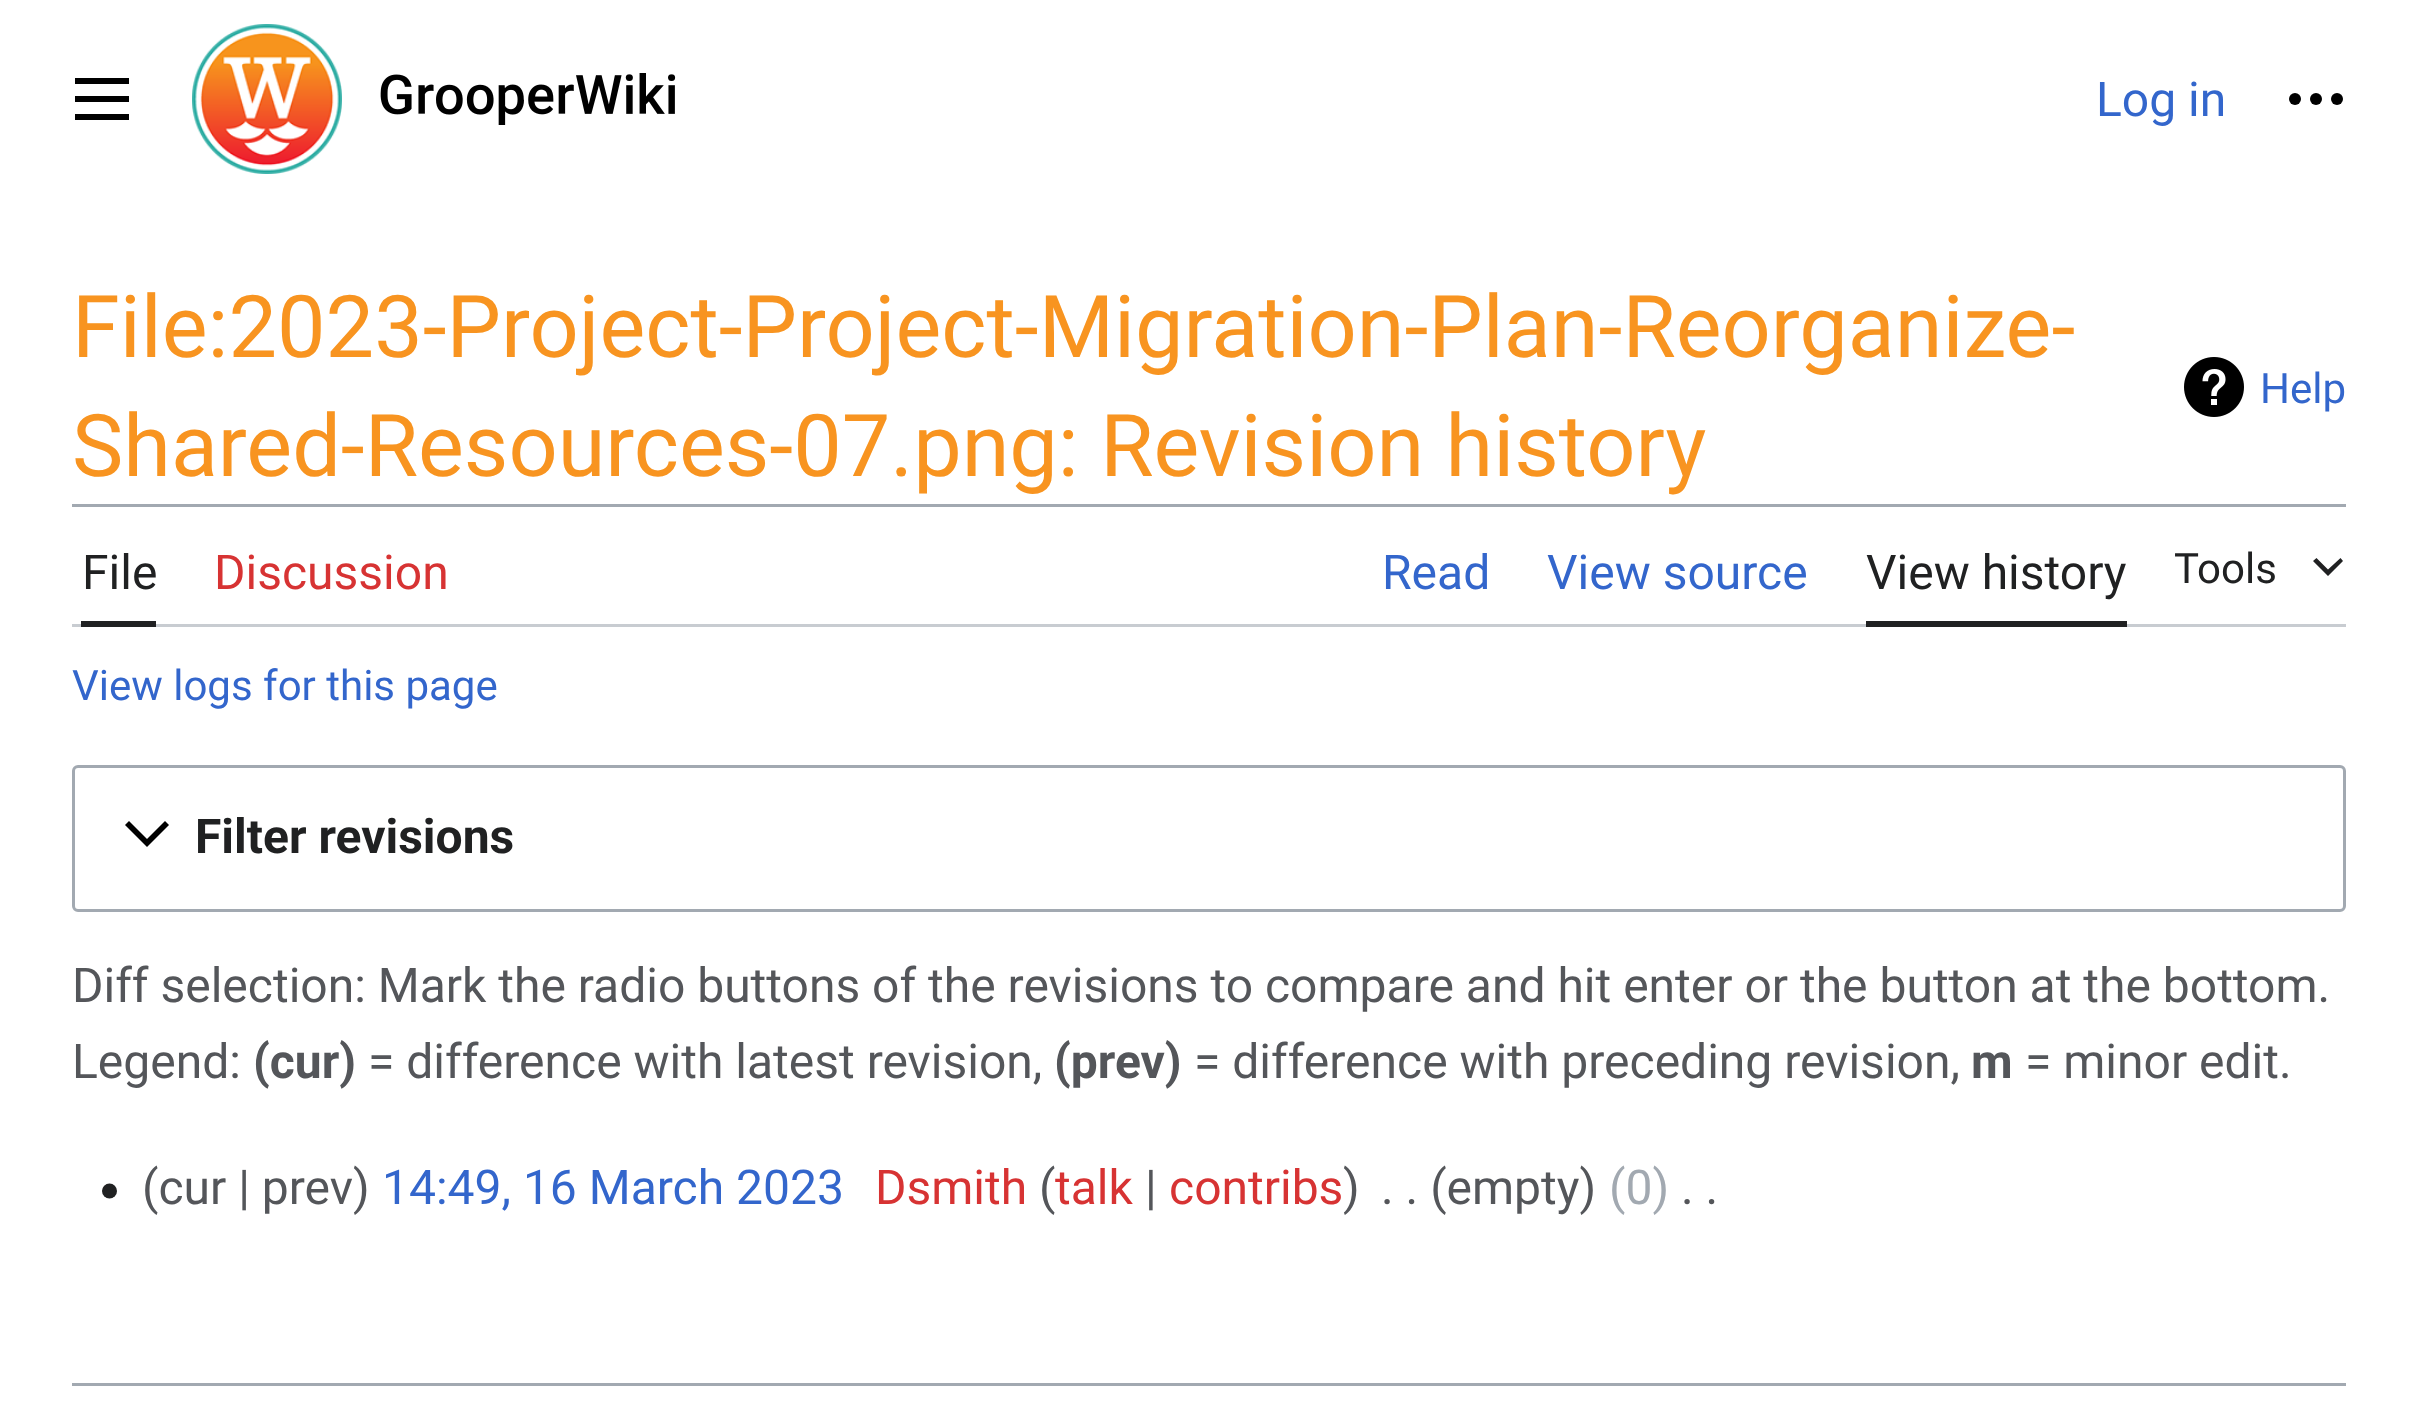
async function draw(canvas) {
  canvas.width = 2416;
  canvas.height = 1415;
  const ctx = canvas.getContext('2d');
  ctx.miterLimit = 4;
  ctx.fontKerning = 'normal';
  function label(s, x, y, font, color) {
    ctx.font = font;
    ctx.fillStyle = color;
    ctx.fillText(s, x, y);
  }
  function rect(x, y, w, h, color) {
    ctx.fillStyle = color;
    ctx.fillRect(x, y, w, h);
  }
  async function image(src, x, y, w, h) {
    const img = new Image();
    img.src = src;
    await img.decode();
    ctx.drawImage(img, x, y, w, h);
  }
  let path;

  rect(0, 0, 2416, 1415, '#fff');
  await image('assets/img1.png', 75, 78, 54, 42);
  await image('assets/img2.png', 192, 24, 150, 150);
  await image('assets/img3.png', 380, 73, 296, 52);
  label('Log in', 2096, 116, '48px Roboto', '#36c');
  await image('assets/img4.png', 2289, 93, 54, 12);
  label('File:2023-Project-Project-Migration-Plan-Reorganize-', 72, 357, '86.4px Roboto', '#f89420');
  label('Shared-Resources-07.png: Revision history', 72, 476, '86.4px Roboto', '#f89420');
  await image('assets/img5.png', 2184, 357, 60, 60);
  label('Help', 2260, 403, '42px Roboto', '#36c');
  rect(72, 504, 2274, 3, '#a2a9b1');
  rect(72, 624, 2274, 3, '#c8ccd1');
  rect(81, 621, 75, 6, '#202122');
  label('File', 82, 589, '48px Roboto', '#202122');
  label('Discussion', 214, 589, '48px Roboto', '#d73333');
  label('Read', 1382, 589, '48px Roboto', '#36c');
  label('View source', 1547, 589, '48px Roboto', '#36c');
  rect(1866, 621, 261, 6, '#202122');
  label('View history', 1866, 589, '48px Roboto', '#202122');
  label('Tools', 2174, 583, '42px Roboto', '#202122');
  path = new Path2D('M2343 561L2340.5 558L2328 569.5L2316.5 558L2313 561L2328 576Z');
  ctx.fill(path);
  label('View logs for this page', 72, 700, '42px Roboto', '#36c');
  ctx.beginPath();
  ctx.roundRect(73.5, 766.5, 2271, 144, 4.5);
  ctx.strokeStyle = '#a2a9b1';
  ctx.lineWidth = 3;
  ctx.stroke();
  ctx.fillStyle = '#000';
  path = new Path2D('M165 821L147 839L129 821L125 825L147 847L169 825Z');
  ctx.fill(path);
  label('Filter revisions', 195, 853, 'bold 48px Roboto', '#202122');
  label('Diff selection: Mark the radio buttons of the revisions to compare and hit enter or the button at the bottom.', 72, 1002, '48px Roboto', '#54565a');
  label('Legend:', 72, 1078, '48px Roboto', '#54565a');
  label('(cur)', 253, 1078, 'bold 48px Roboto', '#54565a');
  label('= difference with latest revision,', 368, 1078, '48px Roboto', '#54565a');
  label('(prev)', 1054, 1078, 'bold 48px Roboto', '#54565a');
  label('= difference with preceding revision,', 1194, 1078, '48px Roboto', '#54565a');
  label('m', 1971, 1078, 'bold 48px Roboto', '#54565a');
  label('= minor edit.', 2025, 1078, '48px Roboto', '#54565a');
  await image('assets/img6.png', 102, 1183, 15, 16);
  label('(cur | prev)', 142, 1204, '48px Roboto', '#54565a');
  label('14:49, 16 March 2023', 382, 1204, '48px Roboto', '#36c');
  label('Dsmith', 875, 1204, '48px Roboto', '#d73333');
  label('(', 1039, 1204, '48px Roboto', '#54565a');
  label('talk', 1055, 1204, '48px Roboto', '#d73333');
  label('|', 1145, 1204, '48px Roboto', '#54565a');
  label('contribs', 1169, 1204, '48px Roboto', '#d73333');
  label(')', 1343, 1204, '48px Roboto', '#54565a');
  label('. . (empty)', 1381, 1204, '48px Roboto', '#54565a');
  label('(0)', 1609, 1204, '48px Roboto', '#a2a9b1');
  label('. .', 1681, 1204, '48px Roboto', '#54565a');
  rect(72, 1383, 2274, 3, '#a2a9b1');
}

draw(document.querySelector('canvas'));
